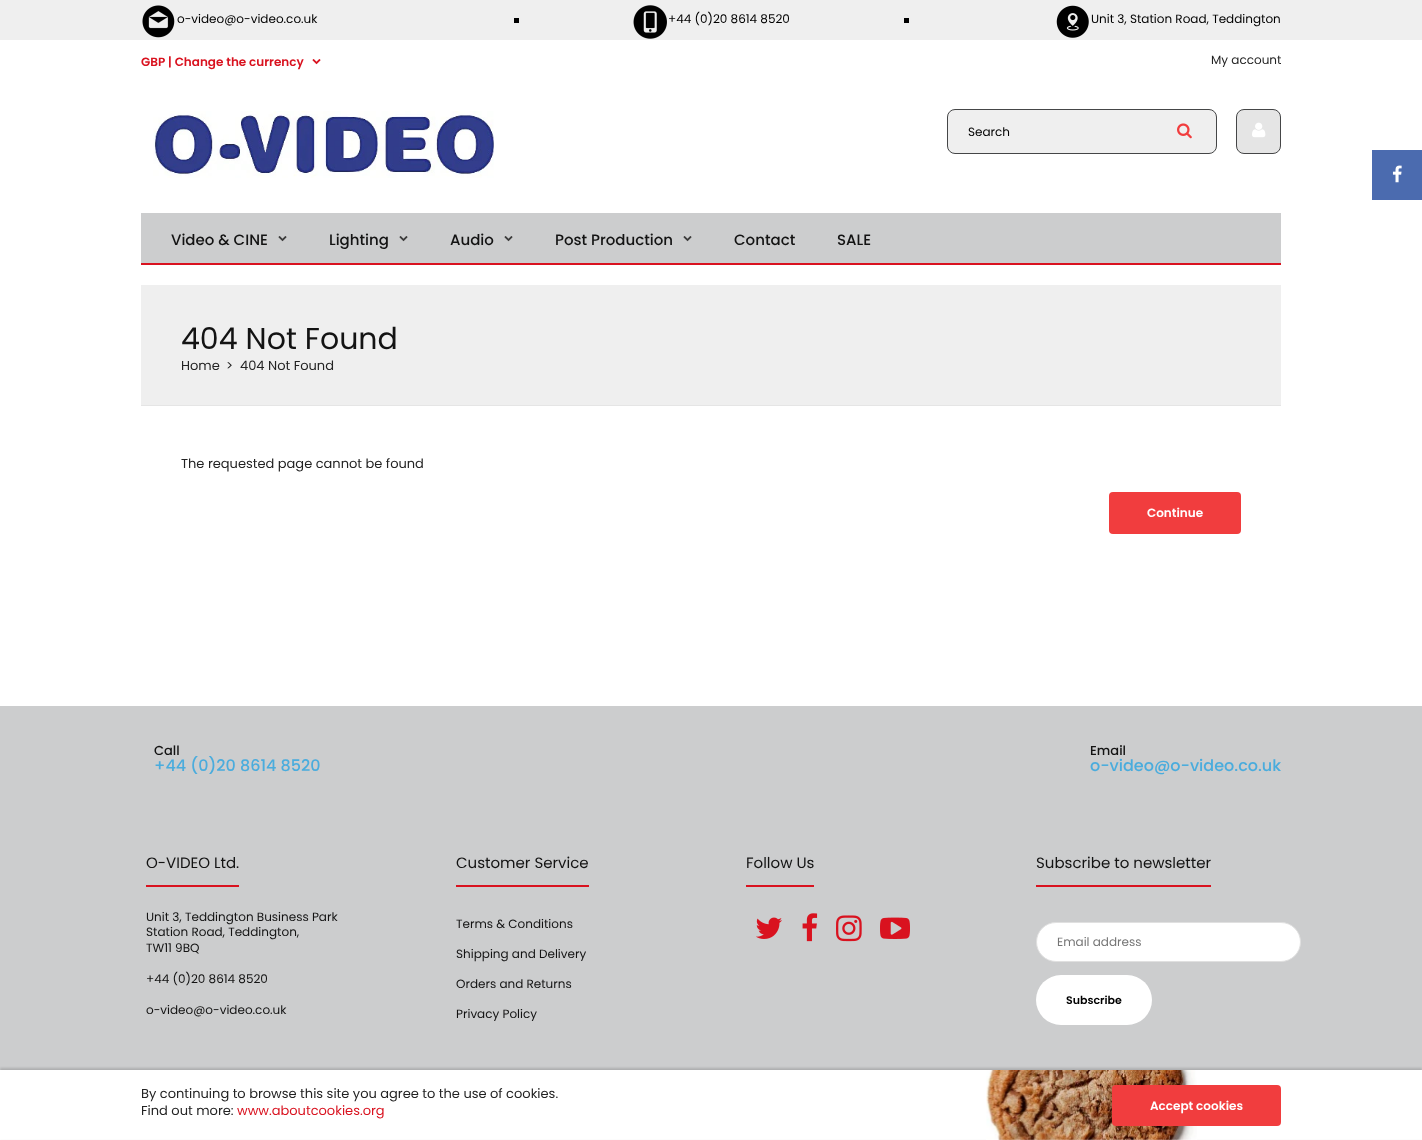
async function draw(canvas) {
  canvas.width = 1422;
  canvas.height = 1140;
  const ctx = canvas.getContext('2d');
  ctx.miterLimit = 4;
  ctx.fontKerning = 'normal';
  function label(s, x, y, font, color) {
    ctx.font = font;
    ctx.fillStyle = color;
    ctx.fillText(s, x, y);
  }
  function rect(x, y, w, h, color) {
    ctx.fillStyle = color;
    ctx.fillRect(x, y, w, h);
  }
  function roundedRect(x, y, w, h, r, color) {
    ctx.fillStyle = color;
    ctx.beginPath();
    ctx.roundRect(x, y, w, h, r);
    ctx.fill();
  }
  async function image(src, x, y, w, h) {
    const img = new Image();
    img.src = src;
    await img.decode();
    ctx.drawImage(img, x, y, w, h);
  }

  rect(0, 0, 1422, 1140, '#fff');
  rect(0, 0, 1422, 40, '#efefef');
  await image('assets/img1.png', 142, 5, 33, 33);
  label('o-video@o-video.co.uk', 177, 23, '12px Poppins', '#000');
  rect(514, 18, 5, 5, '#000');
  await image('assets/img2.png', 633, 5, 34, 34);
  label('+44 (0)20 8614 8520', 668, 23, '12px Poppins', '#000');
  rect(904, 18, 5, 5, '#000');
  await image('assets/img3.png', 1056, 5, 33, 33);
  label('Unit 3, Station Road, Teddington', 1091, 23, '12px Poppins', '#000');
  label('GBP | Change the currency', 141, 66, '600 12px Poppins', '#d9121f');
  await image('assets/img4.png', 312, 59, 9, 6);
  label('My account', 1211, 64, '12px Poppins', '#232323');
  await image('assets/img5.png', 153, 111, 341, 67);
  ctx.fillStyle = '#efefef';
  ctx.beginPath();
  ctx.roundRect(947.5, 109.5, 269, 44, 7.5);
  ctx.fill();
  ctx.strokeStyle = '#454647';
  ctx.stroke();
  label('Search', 968, 136, '12px Poppins', '#000');
  await image('assets/img6.png', 1177, 123, 15, 16);
  ctx.fillStyle = '#e5e5e5';
  ctx.beginPath();
  ctx.roundRect(1236.5, 109.5, 44, 44, 7.5);
  ctx.fill();
  ctx.stroke();
  await image('assets/img7.png', 1252, 122, 14, 16);
  rect(141, 213, 1140, 50, '#cccdce');
  rect(141, 263, 1140, 2, '#d9121f');
  label('Video & CINE', 171, 245, '500 15px Poppins', '#131313');
  await image('assets/img8.png', 278, 236, 9, 6);
  label('Lighting', 329, 245, '500 15px Poppins', '#131313');
  await image('assets/img8.png', 399, 236, 9, 6);
  label('Audio', 450, 245, '500 15px Poppins', '#131313');
  await image('assets/img8.png', 504, 236, 9, 6);
  label('Post Production', 555, 245, '500 15px Poppins', '#131313');
  await image('assets/img8.png', 683, 236, 9, 6);
  label('Contact', 734, 245, '500 15px Poppins', '#131313');
  label('SALE', 837, 245, '500 15px Poppins', '#131313');
  rect(141, 285, 1140, 120, '#efefef');
  rect(141, 405, 1140, 1, '#e5e5e5');
  label('404 Not Found', 181, 349, '30px Poppins', '#131313');
  label('Home', 181, 370, '13px Poppins', '#232323');
  label('>', 226, 370, '13px Poppins', '#232323');
  label('404 Not Found', 240, 370, '13px Poppins', '#232323');
  label('The requested page cannot be found', 181, 468, '13px Poppins', '#232323');
  roundedRect(1109, 492, 132, 42, 4, '#f13d3e');
  label('Continue', 1147, 517, '600 12px Poppins', '#fff');
  rect(0, 706, 1422, 364, '#cccdce');
  label('Call', 154, 755, '500 13px Poppins', '#131313');
  label('+44 (0)20 8614 8520', 154, 771, '500 16px Poppins', '#4aacdd');
  label('Email', 1090, 755, '500 13px Poppins', '#131313');
  label('o-video@o-video.co.uk', 1090, 771, '500 16px Poppins', '#4aacdd');
  rect(146, 885, 93, 2, '#d9121f');
  label('O-VIDEO Ltd.', 146, 868, '15px Poppins', '#131313');
  label('Unit 3, Teddington Business Park', 146, 921, '12px Poppins', '#131313');
  label('Station Road, Teddington,', 146, 936, '12px Poppins', '#131313');
  label('TW11 9BQ', 146, 952, '12px Poppins', '#131313');
  label('+44 (0)20 8614 8520', 146, 983, '12px Poppins', '#131313');
  label('o-video@o-video.co.uk', 146, 1014, '12px Poppins', '#131313');
  rect(456, 885, 133, 2, '#d9121f');
  label('Customer Service', 456, 868, '15px Poppins', '#131313');
  label('Terms & Conditions', 456, 928, '12px Poppins', '#131313');
  label('Shipping and Delivery', 456, 958, '12px Poppins', '#131313');
  label('Orders and Returns', 456, 988, '12px Poppins', '#131313');
  label('Privacy Policy', 456, 1018, '12px Poppins', '#131313');
  rect(746, 885, 68, 2, '#d9121f');
  label('Follow Us', 746, 868, '15px Poppins', '#131313');
  await image('assets/img9.png', 756, 917, 26, 22);
  await image('assets/img10.png', 802, 913, 16, 29);
  await image('assets/img11.png', 836, 915, 26, 27);
  await image('assets/img12.png', 880, 917, 30, 22);
  rect(1036, 885, 175, 2, '#d9121f');
  label('Subscribe to newsletter', 1036, 868, '15px Poppins', '#131313');
  ctx.fillStyle = '#fff';
  ctx.beginPath();
  ctx.roundRect(1036.5, 922.5, 264, 39, 19.5);
  ctx.fill();
  ctx.strokeStyle = '#e0e0e0';
  ctx.stroke();
  label('Email address', 1057, 946, '12px Poppins', '#757575');
  roundedRect(1036, 975, 116, 50, 25, '#fff');
  label('Subscribe', 1066, 1004, '600 11px Poppins', '#000');
  rect(1372, 150, 50, 50, '#4b6baf');
  await image('assets/img13.png', 1392, 165, 10, 18);
  ctx.fillStyle = '#32323233';
  ctx.filter = 'blur(1px)';
  ctx.beginPath();
  ctx.rect(0, 1068, 1422, 70);
  ctx.fill();
  ctx.filter = 'none';
  rect(0, 1070, 1422, 69, '#fff');
  await image('assets/img14.png', 986, 1070, 211, 70);
  label('By continuing to browse this site you agree to the use of cookies.', 141, 1098, '13px Poppins', '#232323');
  label('Find out more:', 141, 1115, '13px Poppins', '#232323');
  label('www.aboutcookies.org', 237, 1115, '13px Poppins', '#d9121f');
  roundedRect(1112, 1085, 169, 41, 4, '#f13d3e');
  label('Accept cookies', 1150, 1110, '600 12px Poppins', '#fff');
}

draw(document.querySelector('canvas'));
